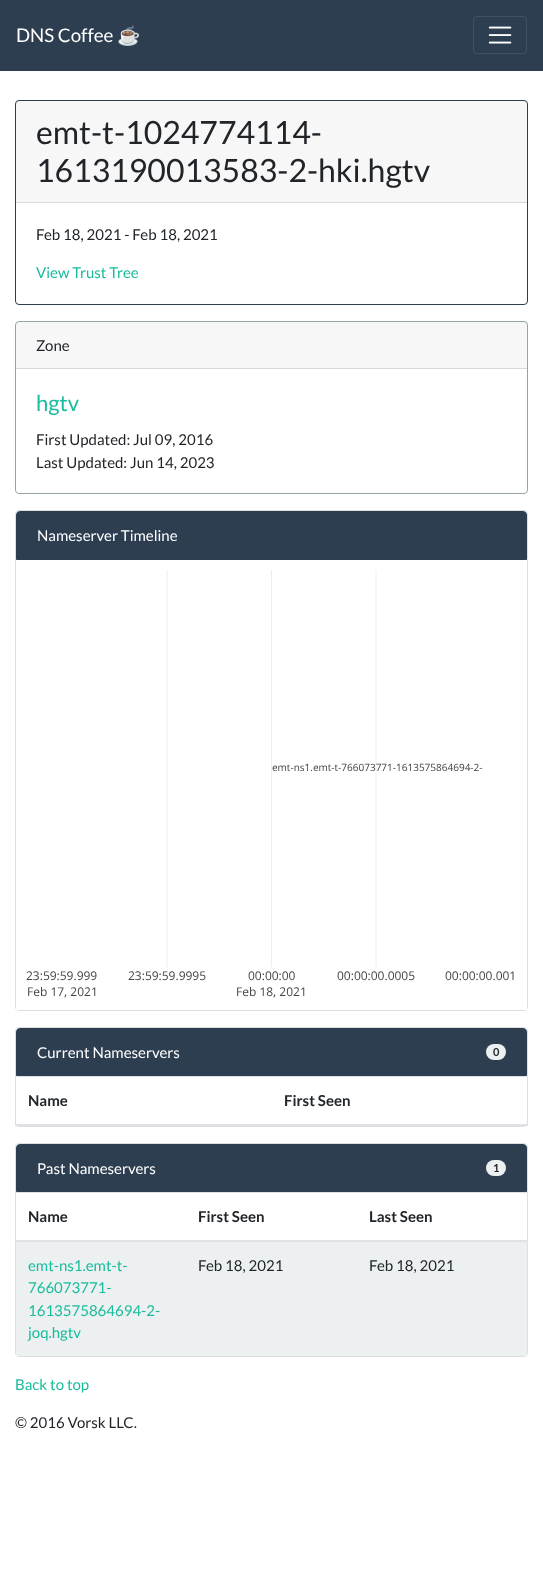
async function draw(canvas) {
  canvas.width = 543;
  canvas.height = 1579;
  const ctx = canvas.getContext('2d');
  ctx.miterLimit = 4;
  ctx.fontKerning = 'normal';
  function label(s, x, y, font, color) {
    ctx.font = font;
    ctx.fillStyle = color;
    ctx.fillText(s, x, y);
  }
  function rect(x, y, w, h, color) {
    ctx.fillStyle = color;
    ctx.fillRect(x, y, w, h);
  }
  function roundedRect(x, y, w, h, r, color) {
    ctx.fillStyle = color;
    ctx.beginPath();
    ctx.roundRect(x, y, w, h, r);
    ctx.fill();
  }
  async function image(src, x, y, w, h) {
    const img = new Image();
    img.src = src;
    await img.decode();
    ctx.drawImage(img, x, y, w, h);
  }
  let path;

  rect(0, 0, 543, 1579, '#fff');
  rect(0, 0, 543, 71, '#2c3e50');
  label('DNS Coffee', 16, 42, '18.75px Lato', '#fff');
  label('☕', 117, 42, '18.75px Noto Color Emoji', '#fff');
  ctx.beginPath();
  ctx.roundRect(473.5, 16.5, 53, 37, 3.5);
  ctx.strokeStyle = '#415162';
  ctx.stroke();
  await image('assets/img1.png', 488, 26, 24, 18);
  ctx.beginPath();
  ctx.roundRect(15.5, 100.5, 512, 204, 3.5);
  ctx.strokeStyle = '#2c3e50';
  ctx.stroke();
  rect(16, 101, 511, 101, '#00000008');
  rect(16, 202, 511, 1, '#d8d8d8');
  label('emt-t-1024774114-', 36, 144, '32px Lato', '#212529');
  label('1613190013583-2-hki.hgtv', 36, 182, '32px Lato', '#212529');
  label('Feb 18, 2021 - Feb 18, 2021', 36, 240, '15px Lato', '#212529');
  label('View Trust Tree', 36, 278, '15px Lato', '#18bc9c');
  ctx.beginPath();
  ctx.roundRect(15.5, 321.5, 512, 172, 3.5);
  ctx.strokeStyle = '#95a5a6';
  ctx.stroke();
  rect(16, 322, 511, 46, '#00000008');
  rect(16, 368, 511, 1, '#d8d8d8');
  label('Zone', 36, 351, '15px Lato', '#212529');
  label('hgtv', 36, 411, '22px Lato', '#18bc9c');
  label('First Updated: Jul 09, 2016', 36, 445, '15px Lato', '#212529');
  label('Last Updated: Jun 14, 2023', 36, 468, '15px Lato', '#212529');
  ctx.beginPath();
  ctx.roundRect(15.5, 510.5, 512, 500, 3.5);
  ctx.strokeStyle = '#dfdfdf';
  ctx.stroke();
  ctx.fillStyle = '#2c3e50';
  ctx.beginPath();
  ctx.roundRect(16.5, 511.5, 510, 48, [3.5, 3.5, 0, 0]);
  ctx.fill();
  ctx.strokeStyle = '#2c3e50';
  ctx.stroke();
  label('Nameserver Timeline', 37, 541, '15px Lato', '#fff');
  rect(16, 1007, 511, 3, '#fff');
  path = new Path2D('M167 570V967');
  ctx.strokeStyle = '#eee';
  ctx.stroke(path);
  rect(271, 570, 1, 397, '#eee');
  path = new Path2D('M376 570V967');
  ctx.stroke(path);
  label('emt-ns1.emt-t-766073771-1613575864694-2-', 272, 771, '10px Open Sans', '#444');
  label('23:59:59.999', 26, 980, '12px Open Sans', '#444');
  label('23:59:59.9995', 128, 980, '12px Open Sans', '#444');
  label('00:00:00', 248, 980, '12px Open Sans', '#444');
  label('00:00:00.0005', 337, 980, '12px Open Sans', '#444');
  label('00:00:00.001', 445, 980, '12px Open Sans', '#444');
  label('Feb 17, 2021', 27, 996, '12px Open Sans', '#444');
  label('Feb 18, 2021', 236, 996, '12px Open Sans', '#444');
  ctx.beginPath();
  ctx.roundRect(15.5, 1027.5, 512, 99, 3.5);
  ctx.strokeStyle = '#dfdfdf';
  ctx.stroke();
  ctx.fillStyle = '#2c3e50';
  ctx.beginPath();
  ctx.roundRect(16.5, 1028.5, 510, 47, [3.5, 3.5, 0, 0]);
  ctx.fill();
  ctx.strokeStyle = '#2c3e50';
  ctx.stroke();
  label('Current Nameservers', 37, 1058, '15px Lato', '#fff');
  roundedRect(486, 1044, 20, 16, 8, '#ecf0f1');
  label('0', 493, 1056, 'bold 11px Lato', '#212529');
  label('Name', 28, 1106, 'bold 15px Lato', '#212529');
  rect(16, 1076, 512, 1, '#dee2e6');
  rect(15, 1124, 513, 2, '#dee2e6');
  label('First Seen', 284, 1106, 'bold 15px Lato', '#212529');
  ctx.beginPath();
  ctx.roundRect(15.5, 1143.5, 512, 213, 3.5);
  ctx.strokeStyle = '#dfdfdf';
  ctx.stroke();
  ctx.fillStyle = '#2c3e50';
  ctx.beginPath();
  ctx.roundRect(16.5, 1144.5, 510, 47, [3.5, 3.5, 0, 0]);
  ctx.fill();
  ctx.strokeStyle = '#2c3e50';
  ctx.stroke();
  label('Past Nameservers', 37, 1174, '15px Lato', '#fff');
  roundedRect(486, 1160, 20, 16, 8, '#ecf0f1');
  label('1', 493, 1172, 'bold 11px Lato', '#212529');
  label('Name', 28, 1222, 'bold 15px Lato', '#212529');
  label('First Seen', 198, 1222, 'bold 15px Lato', '#212529');
  rect(16, 1192, 512, 1, '#dee2e6');
  rect(15, 1240, 513, 2, '#dee2e6');
  label('Last Seen', 369, 1222, 'bold 15px Lato', '#212529');
  rect(16, 1242, 511, 114, '#ecf0f1');
  label('emt-ns1.emt-t-', 28, 1271, '15px Lato', '#18bc9c');
  label('766073771-', 28, 1293, '15px Lato', '#18bc9c');
  label('1613575864694-2-', 28, 1316, '15px Lato', '#18bc9c');
  label('joq.hgtv', 28, 1338, '15px Lato', '#18bc9c');
  label('Feb 18, 2021', 198, 1271, '15px Lato', '#212529');
  label('Feb 18, 2021', 369, 1271, '15px Lato', '#212529');
  label('Back to top', 15, 1390, '15px Lato', '#18bc9c');
  label('© 2016 Vorsk LLC.', 15, 1428, '15px Lato', '#212529');
}

draw(document.querySelector('canvas'));
